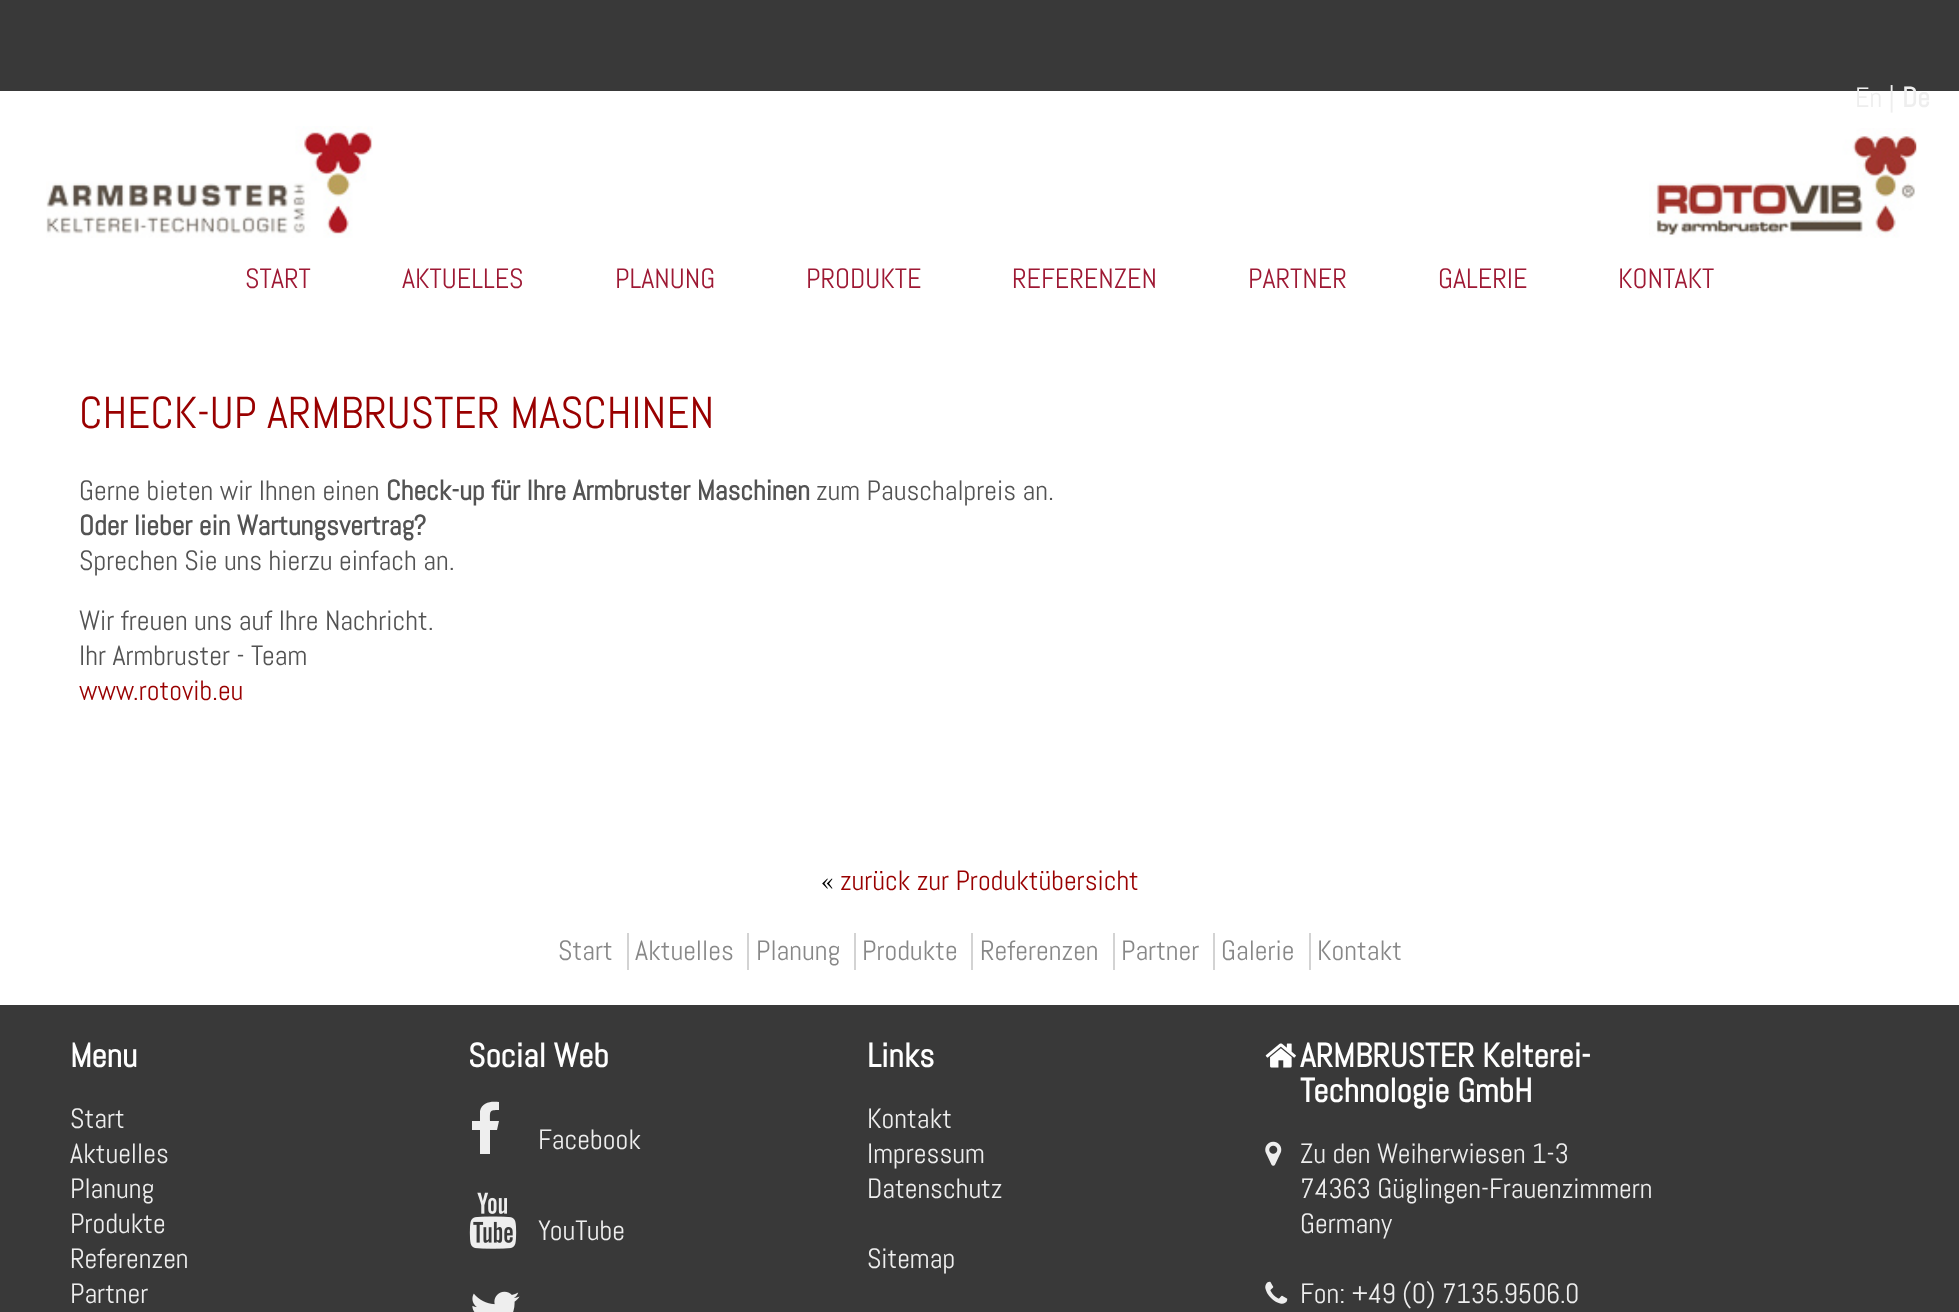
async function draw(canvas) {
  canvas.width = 1959;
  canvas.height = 1312;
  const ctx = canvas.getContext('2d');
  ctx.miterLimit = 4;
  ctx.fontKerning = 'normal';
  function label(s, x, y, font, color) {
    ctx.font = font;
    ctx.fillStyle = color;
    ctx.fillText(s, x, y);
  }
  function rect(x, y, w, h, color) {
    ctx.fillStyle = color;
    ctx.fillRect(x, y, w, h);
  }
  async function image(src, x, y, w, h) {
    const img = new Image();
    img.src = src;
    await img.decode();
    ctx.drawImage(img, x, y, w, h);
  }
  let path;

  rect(0, 0, 1959, 1312, '#393939');
  rect(0, 91, 1959, 914, '#fff');
  label('En |', 1855, 107, '28px Abel', '#eee');
  label('De', 1902, 107, 'bold 28px Abel', '#eee');
  await image('assets/img1.png', 46, 126, 327, 112);
  await image('assets/img2.png', 1649, 128, 268, 110);
  label('START', 245, 288, '28px Abel', '#9e1934');
  label('AKTUELLES', 402, 288, '28px Abel', '#9e1934');
  label('PLANUNG', 615, 288, '28px Abel', '#9e1934');
  label('PRODUKTE', 806, 288, '28px Abel', '#9e1934');
  label('REFERENZEN', 1012, 288, '28px Abel', '#9e1934');
  label('PARTNER', 1248, 288, '28px Abel', '#9e1934');
  label('GALERIE', 1438, 288, '28px Abel', '#9e1934');
  label('KONTAKT', 1618, 288, '28px Abel', '#9e1934');
  label('CHECK-UP ARMBRUSTER MASCHINEN', 79, 428, '44.75px Abel', '#900');
  label('Gerne bieten wir Ihnen einen', 79, 500, '28px Abel', '#535353');
  label('Check-up für Ihre Armbruster Maschinen', 386, 500, 'bold 28px Abel', '#535353');
  label('zum Pauschalpreis an.', 816, 500, '28px Abel', '#535353');
  label('Oder lieber ein Wartungsvertrag?', 79, 535, 'bold 28px Abel', '#535353');
  label('Sprechen Sie uns hierzu einfach an.', 79, 570, '28px Abel', '#535353');
  label('Wir freuen uns auf Ihre Nachricht.', 79, 630, '28px Abel', '#535353');
  label('Ihr Armbruster - Team', 79, 665, '28px Abel', '#535353');
  label('www.rotovib.eu', 79, 700, '28px Abel', '#900');
  label('«', 821, 890, '28px Abel', '#000');
  label('zurück zur Produktübersicht', 840, 890, '28px Abel', '#900');
  label('Start', 558, 960, '28px Abel', '#888');
  label('Aktuelles', 635, 960, '28px Abel', '#888');
  rect(627, 933, 2, 37, '#d3d3d3');
  label('Planung', 756, 960, '28px Abel', '#888');
  rect(747, 933, 2, 37, '#d3d3d3');
  label('Produkte', 862, 960, '28px Abel', '#888');
  rect(854, 933, 2, 37, '#d3d3d3');
  label('Referenzen', 980, 960, '28px Abel', '#888');
  rect(971, 933, 2, 37, '#d3d3d3');
  label('Partner', 1121, 960, '28px Abel', '#888');
  rect(1113, 933, 2, 37, '#d3d3d3');
  label('Galerie', 1221, 960, '28px Abel', '#888');
  rect(1213, 933, 2, 37, '#d3d3d3');
  label('Kontakt', 1317, 960, '28px Abel', '#888');
  rect(1309, 933, 2, 37, '#d3d3d3');
  label('Menu', 70, 1067, 'bold 33.5px Abel', '#fff');
  label('Start', 70, 1128, '28px Abel', '#eee');
  label('Aktuelles', 70, 1163, '28px Abel', '#eee');
  label('Planung', 70, 1198, '28px Abel', '#eee');
  label('Produkte', 70, 1233, '28px Abel', '#eee');
  label('Referenzen', 70, 1268, '28px Abel', '#eee');
  label('Partner', 70, 1303, '28px Abel', '#eee');
  label('Social Web', 468, 1067, 'bold 33.5px Abel', '#fff');
  ctx.fillStyle = '#eee';
  path = new Path2D('M499 1102V1110C489 1110 490 1111 490 1121H499L497 1130H490V1154H480V1130H472V1121H480V1111C482 1102 491 1101 499 1102Z');
  ctx.fill(path);
  label('Facebook', 538, 1149, '28px Abel', '#eee');
  await image('assets/img3.png', 469, 1192, 48, 57);
  label('YouTube', 538, 1240, '28px Abel', '#eee');
  await image('assets/img4.png', 472, 1291, 48, 21);
  label('Links', 867, 1067, 'bold 33.5px Abel', '#fff');
  label('Kontakt', 867, 1128, '28px Abel', '#eee');
  label('Impressum', 867, 1163, '28px Abel', '#eee');
  label('Datenschutz', 867, 1198, '28px Abel', '#eee');
  label('Sitemap', 867, 1268, '28px Abel', '#eee');
  await image('assets/img5.png', 1265, 1043, 31, 25);
  label('ARMBRUSTER Kelterei-', 1300, 1067, 'bold 33.5px Abel', '#fff');
  label('Technologie GmbH', 1300, 1102, 'bold 33.5px Abel', '#fff');
  await image('assets/img6.png', 1265, 1141, 17, 25);
  label('Zu den Weiherwiesen 1-3', 1300, 1163, '28px Abel', '#eee');
  label('74363 Güglingen-Frauenzimmern', 1300, 1198, '28px Abel', '#eee');
  label('Germany', 1300, 1233, '28px Abel', '#eee');
  await image('assets/img7.png', 1265, 1281, 23, 23);
  label('Fon: +49 (0) 7135.9506.0', 1300, 1303, '28px Abel', '#eee');
}

draw(document.querySelector('canvas'));
